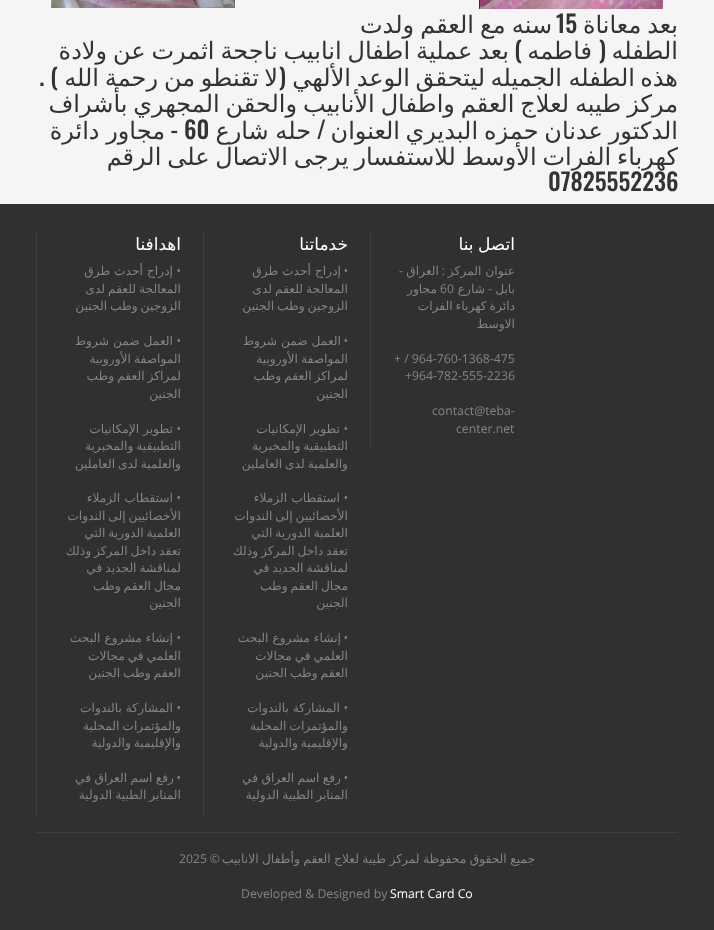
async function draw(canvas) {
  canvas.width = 714;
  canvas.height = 930;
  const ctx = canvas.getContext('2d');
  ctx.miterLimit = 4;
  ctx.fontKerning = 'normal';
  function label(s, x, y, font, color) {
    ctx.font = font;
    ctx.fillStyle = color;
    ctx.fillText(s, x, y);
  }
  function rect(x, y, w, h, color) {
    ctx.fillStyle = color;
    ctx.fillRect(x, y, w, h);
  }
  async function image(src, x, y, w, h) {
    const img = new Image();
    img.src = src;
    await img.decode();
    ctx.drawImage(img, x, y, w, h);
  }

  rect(0, 0, 714, 930, '#f5f5f5');
  await image('assets/img1.png', 479, 0, 184, 9);
  await image('assets/img2.png', 51, 0, 184, 8);
  ctx.wordSpacing = '-1.75px';
  ctx.direction = 'rtl';
  label('بعد معاناة', 678, 33, '24px DejaVu Sans', '#333');
  ctx.wordSpacing = '0px';
  ctx.direction = 'ltr';
  label('15', 556, 33, '500 24px Oswald', '#333');
  ctx.wordSpacing = '-1.5px';
  ctx.direction = 'rtl';
  label('سنه مع العقم ولدت', 552, 33, '24px DejaVu Sans', '#333');
  ctx.wordSpacing = '0px';
  label('(', 606, 59, '500 24px Oswald', '#333');
  label(')', 522, 59, '500 24px Oswald', '#333');
  label('الطفله', 678, 59, '24px DejaVu Sans', '#333');
  label('فاطمه', 592, 59, '24px DejaVu Sans', '#333');
  ctx.wordSpacing = '-1.75px';
  label('بعد عملية اطفال انابيب ناجحة اثمرت عن ولادة', 509, 59, '24px DejaVu Sans', '#333');
  ctx.wordSpacing = '0px';
  label('هذه', 678, 86, '24px DejaVu Sans', '#333');
  label('الطفله', 635, 86, '24px DejaVu Sans', '#333');
  label('الجميله', 562, 86, '24px DejaVu Sans', '#333');
  label('ليتحقق', 485, 86, '24px DejaVu Sans', '#333');
  label('الوعد', 410, 86, '24px DejaVu Sans', '#333');
  label('الألهي', 351, 86, '24px DejaVu Sans', '#333');
  label('(', 286, 86, '500 24px Oswald', '#333');
  label('لا', 278, 86, '24px DejaVu Sans', '#333');
  label('تقنطو', 259, 86, '24px DejaVu Sans', '#333');
  label('من', 195, 86, '24px DejaVu Sans', '#333');
  label('رحمة', 158, 86, '24px DejaVu Sans', '#333');
  label('الله', 99, 86, '24px DejaVu Sans', '#333');
  label(') .', 58, 86, '500 24px Oswald', '#333');
  ctx.wordSpacing = '-1.75px';
  label('مركز طيبه لعلاج العقم واطفال الأنابيب والحقن المجهري بأشراف', 678, 112, '24px DejaVu Sans', '#333');
  label('الدكتور عدنان حمزه البديري', 678, 139, '24px DejaVu Sans', '#333');
  ctx.wordSpacing = '0px';
  label('العنوان', 400, 139, '24px DejaVu Sans', '#333');
  label('/', 326, 139, '500 24px Oswald', '#333');
  ctx.wordSpacing = '-1px';
  label('حله شارع', 311, 139, '24px DejaVu Sans', '#333');
  ctx.wordSpacing = '0px';
  ctx.direction = 'ltr';
  label('60', 184, 139, '500 24px Oswald', '#333');
  ctx.direction = 'rtl';
  label('-', 178, 139, '500 24px Oswald', '#333');
  ctx.wordSpacing = '-1px';
  label('مجاور دائرة', 165, 139, '24px DejaVu Sans', '#333');
  ctx.wordSpacing = '-1.75px';
  label('كهرباء الفرات الأوسط للاستفسار يرجى الاتصال على الرقم', 678, 165, '24px DejaVu Sans', '#333');
  ctx.wordSpacing = '0px';
  ctx.direction = 'ltr';
  label('07825552236', 548, 191, '500 24px Oswald', '#333');
  rect(0, 204, 714, 726, '#303030');
  rect(370, 232, 1, 219, '#3e3e3e');
  ctx.wordSpacing = '-1px';
  ctx.direction = 'rtl';
  label('اتصل بنا', 515, 250, '17px DejaVu Sans', '#fff');
  ctx.wordSpacing = '0px';
  label('عنوان المركز', 515, 275, '12.25px DejaVu Sans', '#858484');
  label(':', 445, 275, '12.25px Open Sans', '#858484');
  label('العراق', 439, 275, '12.25px DejaVu Sans', '#858484');
  label('-', 403, 275, '12.25px Open Sans', '#858484');
  label('بابل', 515, 293, '12.25px DejaVu Sans', '#858484');
  label('-', 492, 293, '12.25px Open Sans', '#858484');
  label('شارع', 485, 293, '12.25px DejaVu Sans', '#858484');
  ctx.direction = 'ltr';
  label('60', 440, 293, '12.25px Open Sans', '#858484');
  ctx.direction = 'rtl';
  label('مجاور', 437, 293, '12.25px DejaVu Sans', '#858484');
  ctx.wordSpacing = '-1px';
  label('دائرة كهرباء الفرات', 515, 310, '12.25px DejaVu Sans', '#858484');
  ctx.wordSpacing = '0px';
  label('الاوسط', 515, 328, '12.25px DejaVu Sans', '#858484');
  ctx.direction = 'ltr';
  label('+ / 964-760-1368-475', 394, 363, '12.25px Open Sans', '#858484');
  label('+964-782-555-2236', 405, 380, '12.25px Open Sans', '#858484');
  label('contact@teba-', 432, 415, '12.25px Open Sans', '#858484');
  label('center.net', 456, 433, '12.25px Open Sans', '#858484');
  rect(203, 232, 1, 586, '#3e3e3e');
  ctx.direction = 'rtl';
  label('خدماتنا', 348, 250, '17px DejaVu Sans', '#fff');
  label('•', 348, 275, '12.25px Open Sans', '#858484');
  label('إدراج أحدث طرق', 341, 275, '12.25px DejaVu Sans', '#858484');
  ctx.wordSpacing = '-1px';
  label('المعالجة للعقم لدى', 348, 293, '12.25px DejaVu Sans', '#858484');
  label('الزوجين وطب الجنين', 348, 310, '12.25px DejaVu Sans', '#858484');
  ctx.wordSpacing = '0px';
  label('•', 348, 345, '12.25px Open Sans', '#858484');
  label('العمل ضمن شروط', 341, 345, '12.25px DejaVu Sans', '#858484');
  ctx.wordSpacing = '-1px';
  label('المواصفة الأوروبية', 348, 363, '12.25px DejaVu Sans', '#858484');
  label('لمراكز العقم وطب', 348, 380, '12.25px DejaVu Sans', '#858484');
  ctx.wordSpacing = '0px';
  label('الجنين', 348, 398, '12.25px DejaVu Sans', '#858484');
  label('•', 348, 433, '12.25px Open Sans', '#858484');
  label('تطوير الإمكانيات', 340, 433, '12.25px DejaVu Sans', '#858484');
  ctx.wordSpacing = '-1px';
  label('التطبيقية والمخبرية', 348, 450, '12.25px DejaVu Sans', '#858484');
  label('والعلمية لدى العاملين', 348, 468, '12.25px DejaVu Sans', '#858484');
  ctx.wordSpacing = '0px';
  label('•', 348, 502, '12.25px Open Sans', '#858484');
  label('استقطاب الزملاء', 340, 502, '12.25px DejaVu Sans', '#858484');
  ctx.wordSpacing = '-1px';
  label('الأخصائيين إلى الندوات', 348, 520, '12.25px DejaVu Sans', '#858484');
  label('العلمية الدورية التي', 348, 537, '12.25px DejaVu Sans', '#858484');
  label('تعقد داخل المركز وذلك', 348, 555, '12.25px DejaVu Sans', '#858484');
  label('لمناقشة الجديد في', 348, 572, '12.25px DejaVu Sans', '#858484');
  label('مجال العقم وطب', 348, 590, '12.25px DejaVu Sans', '#858484');
  ctx.wordSpacing = '0px';
  label('الجنين', 348, 607, '12.25px DejaVu Sans', '#858484');
  label('•', 348, 642, '12.25px Open Sans', '#858484');
  label('إنشاء مشروع البحث', 341, 642, '12.25px DejaVu Sans', '#858484');
  ctx.wordSpacing = '-1px';
  label('العلمي في مجالات', 348, 660, '12.25px DejaVu Sans', '#858484');
  label('العقم وطب الجنين', 348, 677, '12.25px DejaVu Sans', '#858484');
  ctx.wordSpacing = '0px';
  label('•', 348, 712, '12.25px Open Sans', '#858484');
  label('المشاركة بالندوات', 340, 712, '12.25px DejaVu Sans', '#858484');
  ctx.wordSpacing = '-1px';
  label('والمؤتمرات المحلية', 348, 730, '12.25px DejaVu Sans', '#858484');
  label('والإقليمية والدولية', 348, 747, '12.25px DejaVu Sans', '#858484');
  ctx.wordSpacing = '0px';
  label('•', 348, 782, '12.25px Open Sans', '#858484');
  ctx.wordSpacing = '-0.5px';
  label('رفع اسم العراق في', 341, 782, '12.25px DejaVu Sans', '#858484');
  ctx.wordSpacing = '-1px';
  label('المنابر الطبية الدولية', 348, 799, '12.25px DejaVu Sans', '#858484');
  rect(36, 232, 1, 586, '#3e3e3e');
  ctx.wordSpacing = '0px';
  label('اهدافنا', 181, 250, '17px DejaVu Sans', '#fff');
  label('•', 181, 275, '12.25px Open Sans', '#858484');
  label('إدراج أحدث طرق', 173, 275, '12.25px DejaVu Sans', '#858484');
  ctx.wordSpacing = '-1px';
  label('المعالجة للعقم لدى', 181, 293, '12.25px DejaVu Sans', '#858484');
  label('الزوجين وطب الجنين', 181, 310, '12.25px DejaVu Sans', '#858484');
  ctx.wordSpacing = '0px';
  label('•', 181, 345, '12.25px Open Sans', '#858484');
  label('العمل ضمن شروط', 173, 345, '12.25px DejaVu Sans', '#858484');
  ctx.wordSpacing = '-1px';
  label('المواصفة الأوروبية', 181, 363, '12.25px DejaVu Sans', '#858484');
  label('لمراكز العقم وطب', 181, 380, '12.25px DejaVu Sans', '#858484');
  ctx.wordSpacing = '0px';
  label('الجنين', 181, 398, '12.25px DejaVu Sans', '#858484');
  label('•', 181, 433, '12.25px Open Sans', '#858484');
  label('تطوير الإمكانيات', 173, 433, '12.25px DejaVu Sans', '#858484');
  ctx.wordSpacing = '-1px';
  label('التطبيقية والمخبرية', 181, 450, '12.25px DejaVu Sans', '#858484');
  label('والعلمية لدى العاملين', 181, 468, '12.25px DejaVu Sans', '#858484');
  ctx.wordSpacing = '0px';
  label('•', 181, 502, '12.25px Open Sans', '#858484');
  label('استقطاب الزملاء', 173, 502, '12.25px DejaVu Sans', '#858484');
  ctx.wordSpacing = '-1px';
  label('الأخصائيين إلى الندوات', 181, 520, '12.25px DejaVu Sans', '#858484');
  label('العلمية الدورية التي', 181, 537, '12.25px DejaVu Sans', '#858484');
  label('تعقد داخل المركز وذلك', 181, 555, '12.25px DejaVu Sans', '#858484');
  label('لمناقشة الجديد في', 181, 572, '12.25px DejaVu Sans', '#858484');
  label('مجال العقم وطب', 181, 590, '12.25px DejaVu Sans', '#858484');
  ctx.wordSpacing = '0px';
  label('الجنين', 181, 607, '12.25px DejaVu Sans', '#858484');
  label('•', 181, 642, '12.25px Open Sans', '#858484');
  label('إنشاء مشروع البحث', 173, 642, '12.25px DejaVu Sans', '#858484');
  ctx.wordSpacing = '-1px';
  label('العلمي في مجالات', 181, 660, '12.25px DejaVu Sans', '#858484');
  label('العقم وطب الجنين', 181, 677, '12.25px DejaVu Sans', '#858484');
  ctx.wordSpacing = '0px';
  label('•', 181, 712, '12.25px Open Sans', '#858484');
  label('المشاركة بالندوات', 173, 712, '12.25px DejaVu Sans', '#858484');
  ctx.wordSpacing = '-1px';
  label('والمؤتمرات المحلية', 181, 730, '12.25px DejaVu Sans', '#858484');
  label('والإقليمية والدولية', 181, 747, '12.25px DejaVu Sans', '#858484');
  ctx.wordSpacing = '0px';
  label('•', 181, 782, '12.25px Open Sans', '#858484');
  ctx.wordSpacing = '-0.5px';
  label('رفع اسم العراق في', 174, 782, '12.25px DejaVu Sans', '#858484');
  ctx.wordSpacing = '-1px';
  label('المنابر الطبية الدولية', 181, 799, '12.25px DejaVu Sans', '#858484');
  rect(36, 832, 642, 1, '#3e3e3e');
  ctx.wordSpacing = '-0.5px';
  label('جميع الحقوق محفوظة لمركز طيبة لعلاج العقم وأطفال الانابيب', 535, 863, '12.25px DejaVu Sans', '#858484');
  ctx.wordSpacing = '0px';
  label('©', 220, 863, '12.25px Open Sans', '#858484');
  ctx.direction = 'ltr';
  label('2025', 179, 863, '12.25px Open Sans', '#858484');
  label('Smart Card Co', 390, 898, '12.25px Open Sans', '#fff');
  label('Developed & Designed by', 241, 898, '12.25px Open Sans', '#858484');
}

draw(document.querySelector('canvas'));
